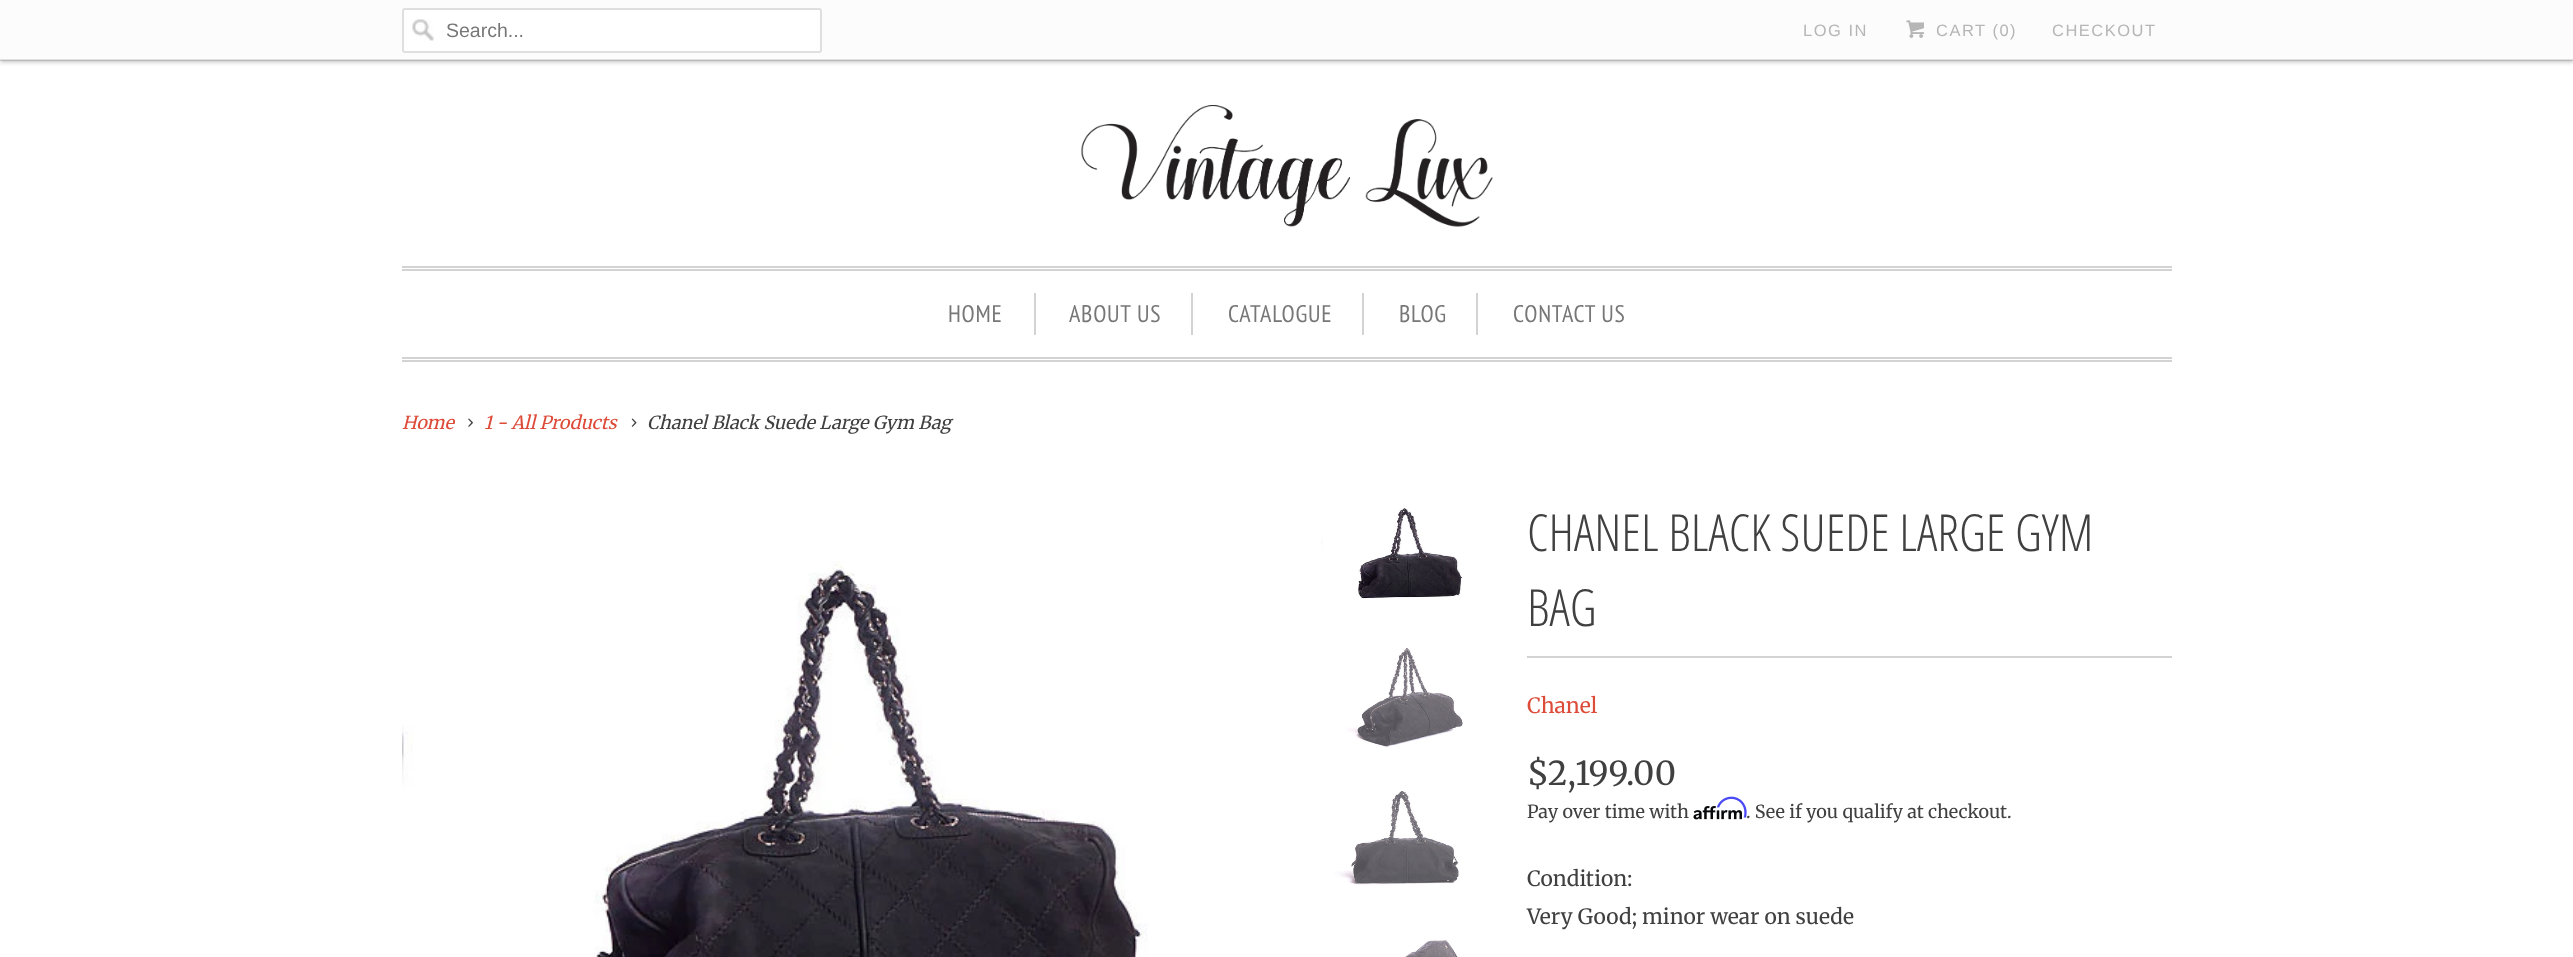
async function draw(canvas) {
  canvas.width = 2573;
  canvas.height = 957;
  const ctx = canvas.getContext('2d');
  ctx.miterLimit = 4;
  ctx.fontKerning = 'normal';
  function label(s, x, y, font, color) {
    ctx.font = font;
    ctx.fillStyle = color;
    ctx.fillText(s, x, y);
  }
  function rect(x, y, w, h, color) {
    ctx.fillStyle = color;
    ctx.fillRect(x, y, w, h);
  }
  function roundedRect(x, y, w, h, r, color) {
    ctx.fillStyle = color;
    ctx.beginPath();
    ctx.roundRect(x, y, w, h, r);
    ctx.fill();
  }
  async function image(src, x, y, w, h) {
    const img = new Image();
    img.src = src;
    await img.decode();
    ctx.drawImage(img, x, y, w, h);
  }

  rect(0, 0, 2573, 957, '#fff');
  ctx.fillStyle = '#00000040';
  ctx.filter = 'blur(2px)';
  ctx.beginPath();
  ctx.rect(0, 2, 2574, 60);
  ctx.fill();
  ctx.filter = 'none';
  rect(0, 0, 2573, 60, '#fcfcfc');
  rect(0, 59, 2573, 2, '#0000001a');
  roundedRect(402, 8, 420, 45, 3, '#fff');
  await image('assets/img1.png', 412, 19, 22, 22);
  ctx.beginPath();
  ctx.roundRect(403, 9, 418, 43, 2);
  ctx.strokeStyle = '#dfdfdf';
  ctx.lineWidth = 2;
  ctx.stroke();
  label('Search...', 446, 37, '19.5px Liberation Sans', '#777');
  ctx.letterSpacing = '1.5px';
  label('LOG IN', 1803, 36, '16.5px Liberation Sans', '#b6b6b6');
  await image('assets/img2.png', 1906, 20, 18, 18);
  label('CART (0)', 1936, 36, '16.5px Liberation Sans', '#b6b6b6');
  label('CHECKOUT', 2052, 36, '16.5px Liberation Sans', '#b6b6b6');
  await image('assets/img3.png', 1081, 105, 412, 122);
  rect(402, 266, 1770, 2, '#d3d3d3');
  rect(402, 269, 1770, 2, '#d3d3d3');
  rect(402, 357, 1770, 2, '#d3d3d3');
  rect(402, 360, 1770, 2, '#d3d3d3');
  rect(1034, 293, 2, 42, '#d3d3d3');
  ctx.letterSpacing = '0.75px';
  label('HOME', 948, 322, '24px PT Sans Narrow', '#777');
  rect(1191, 293, 2, 42, '#d3d3d3');
  label('ABOUT US', 1069, 322, '24px PT Sans Narrow', '#777');
  rect(1362, 293, 2, 42, '#d3d3d3');
  label('CATALOGUE', 1228, 322, '24px PT Sans Narrow', '#777');
  rect(1476, 293, 2, 42, '#d3d3d3');
  label('BLOG', 1399, 322, '24px PT Sans Narrow', '#777');
  label('CONTACT US', 1513, 322, '24px PT Sans Narrow', '#777');
  ctx.letterSpacing = '0px';
  label('Home', 402, 429, 'italic 18px Merriweather', '#dd4b39');
  await image('assets/img4.png', 468, 418, 5, 9);
  label('1 - All Products', 484, 429, 'italic 18px Merriweather', '#dd4b39');
  await image('assets/img5.png', 631, 418, 6, 9);
  label('Chanel Black Suede Large Gym Bag', 647, 429, 'italic 18px Merriweather', '#404040');
  await image('assets/img6.png', 402, 561, 746, 396);
  await image('assets/img7.png', 1321, 507, 142, 92);
  await image('assets/img8.png', 1346, 648, 117, 100);
  await image('assets/img9.png', 1334, 791, 125, 95);
  await image('assets/img10.png', 1402, 939, 57, 18);
  rect(1527, 656, 645, 2, '#d3d3d3');
  label('CHANEL BLACK SUEDE LARGE GYM', 1527, 551, '300 51px Open Sans Condensed', '#404040');
  label('BAG', 1527, 626, '300 51px Open Sans Condensed', '#404040');
  label('Chanel', 1527, 713, '21px Merriweather', '#dd4b39');
  label('$2,199.00', 1527, 785, '33px Merriweather', '#404040');
  label('Pay over time with', 1527, 818, '18px Merriweather', '#404040');
  await image('assets/img12.png', 1693, 806, 49, 14);
  await image('assets/img11.png', 1716, 796, 31, 22);
  label('. See if you qualify at checkout.', 1746, 818, '18px Merriweather', '#404040');
  label('Condition:', 1527, 886, '21px Merriweather', '#404040');
  label('Very Good; minor wear on suede', 1527, 924, '21px Merriweather', '#404040');
}

draw(document.querySelector('canvas'));
